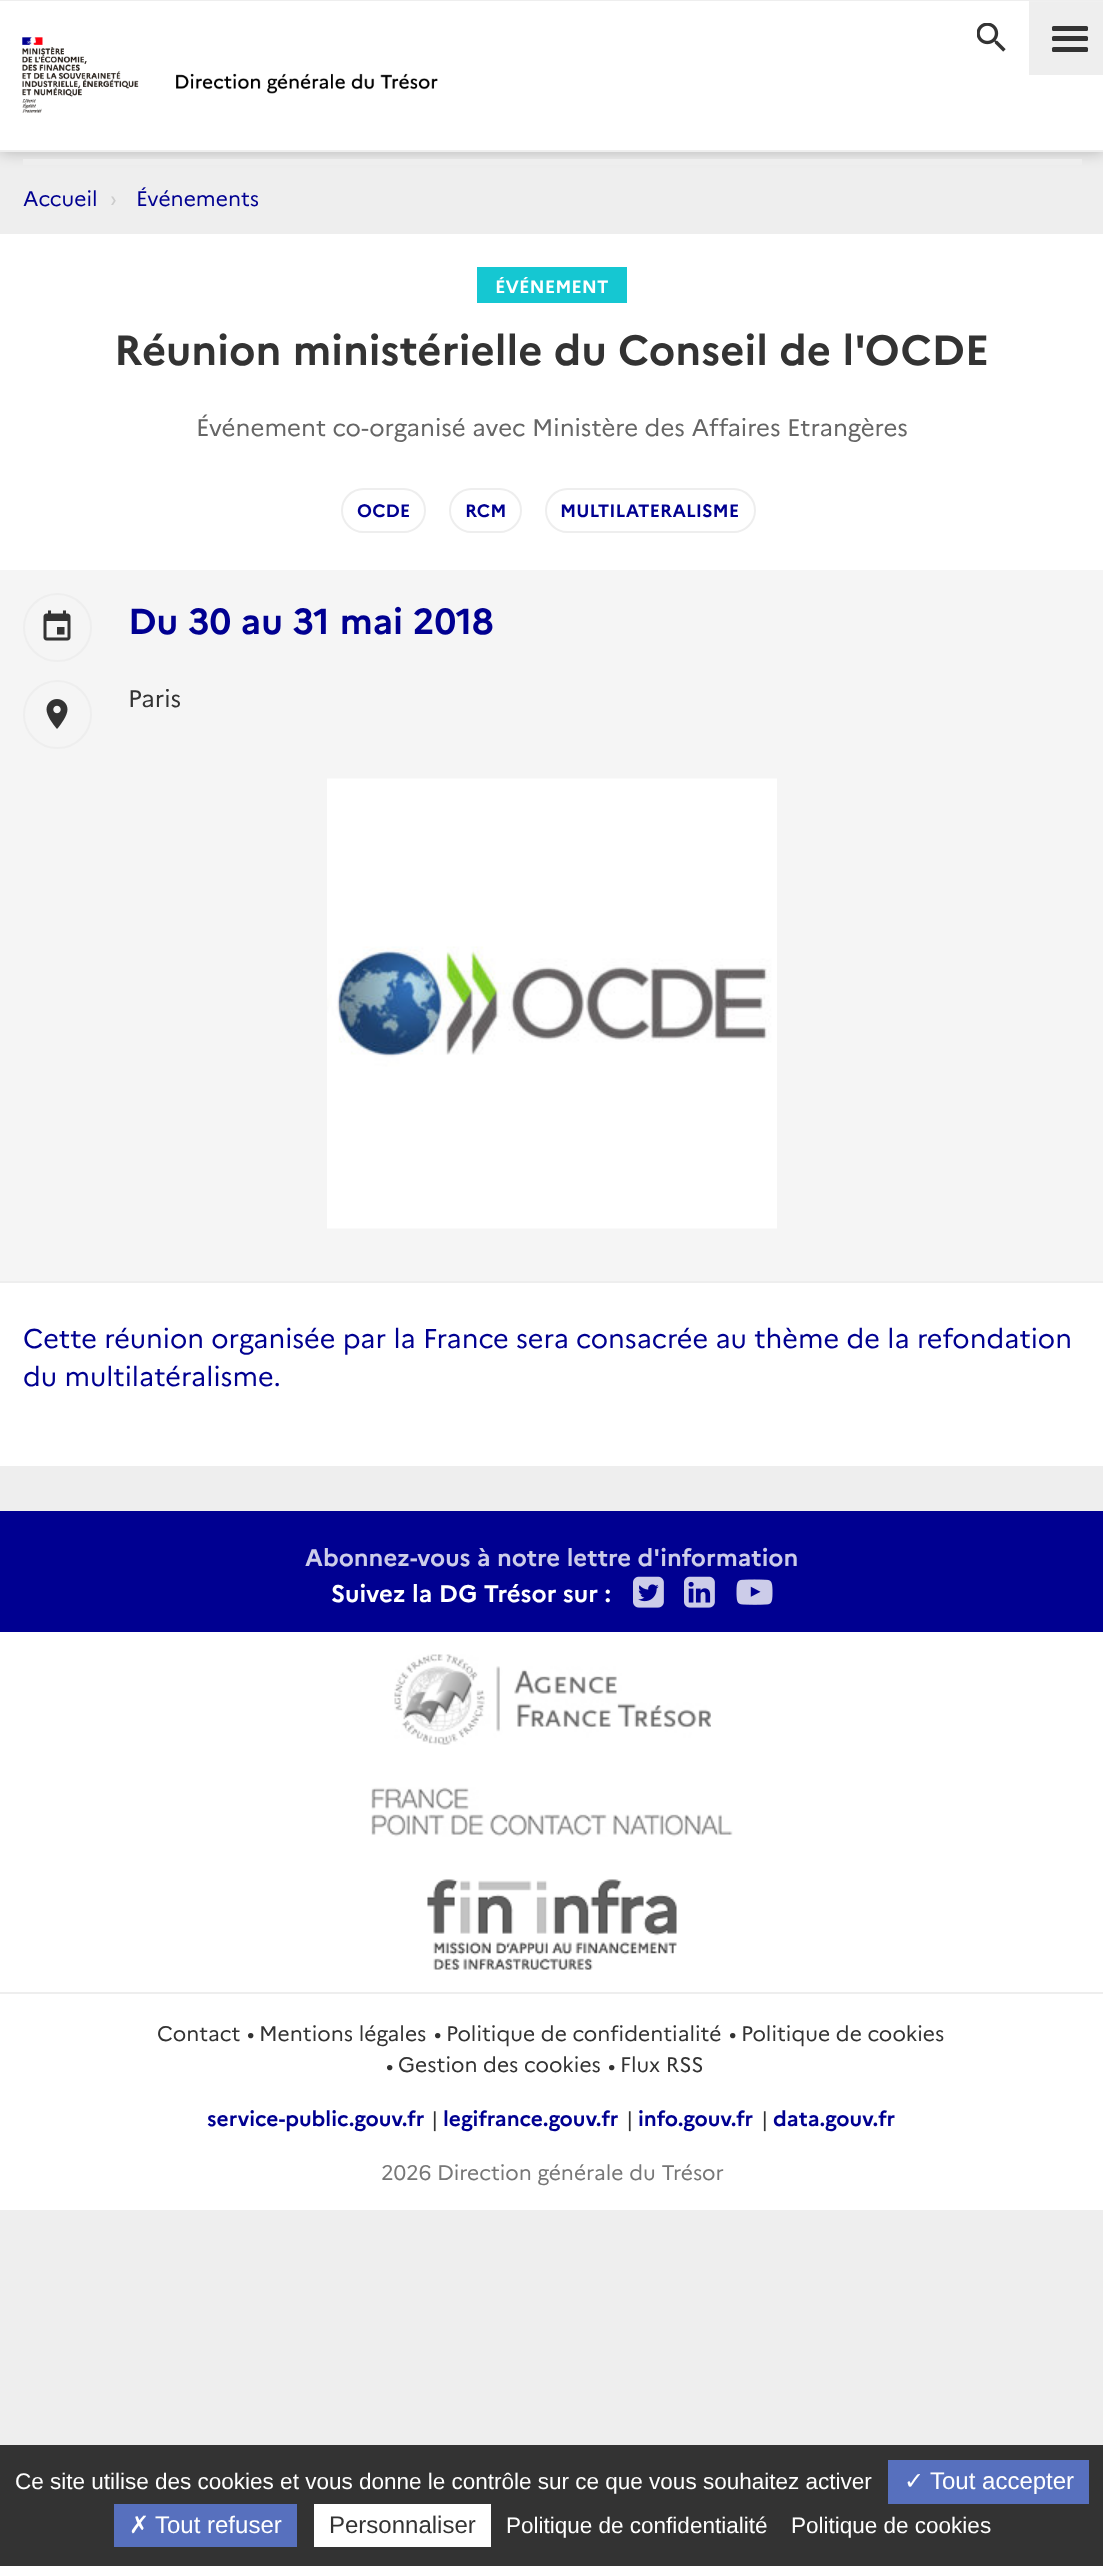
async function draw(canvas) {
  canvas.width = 1103;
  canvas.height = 2566;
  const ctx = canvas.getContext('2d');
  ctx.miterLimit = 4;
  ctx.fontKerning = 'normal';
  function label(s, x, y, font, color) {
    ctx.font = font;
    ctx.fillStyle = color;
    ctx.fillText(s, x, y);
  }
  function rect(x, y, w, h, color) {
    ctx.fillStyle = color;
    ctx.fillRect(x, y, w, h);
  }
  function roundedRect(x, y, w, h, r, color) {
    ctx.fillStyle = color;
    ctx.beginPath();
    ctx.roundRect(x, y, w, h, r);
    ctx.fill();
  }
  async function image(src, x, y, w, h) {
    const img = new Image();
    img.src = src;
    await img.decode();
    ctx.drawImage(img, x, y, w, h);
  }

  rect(0, 0, 1103, 2566, '#eee');
  ctx.fillStyle = '#00000040';
  ctx.filter = 'blur(7.5px)';
  ctx.beginPath();
  ctx.rect(0, 0, 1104, 152);
  ctx.fill();
  ctx.filter = 'none';
  rect(0, 2, 1103, 148, '#fff');
  rect(0, 1, 1029, 1, '#fff');
  rect(0, 150, 1103, 2, '#eee');
  rect(0, 0, 1103, 1, '#eee');
  await image('assets/img1.png', 22, 37, 117, 76);
  await image('assets/img2.png', 176, 73, 262, 21);
  await image('assets/img3.png', 977, 23, 29, 29);
  rect(1029, 2, 74, 73, '#eee');
  rect(1029, 1, 74, 1, '#f0f0f0');
  roundedRect(1052, 26, 36, 5, 1.5, '#333');
  roundedRect(1052, 36, 36, 5, 1.5, '#333');
  roundedRect(1052, 47, 36, 5, 1.5, '#333');
  rect(23, 159, 1059, 6, '#eee');
  label('Accueil', 23, 206, '21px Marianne', '#000091');
  label('›', 110, 206, '21px Marianne', '#ccc');
  label('Événements', 136, 206, '21px Marianne', '#000091');
  rect(0, 234, 1103, 1232, '#fff');
  rect(477, 267, 150, 36, '#15c7d2');
  label('ÉVÉNEMENT', 495, 293, 'bold 18px Marianne', '#fff');
  label('Réunion ministérielle du Conseil de l\'OCDE', 114, 365, 'bold 42px Marianne', '#333');
  label('Événement co-organisé avec Ministère des Affaires Etrangères', 196, 436, '24px Marianne', '#666');
  ctx.beginPath();
  ctx.roundRect(342, 489, 83, 43, 21.5);
  ctx.strokeStyle = '#eee';
  ctx.lineWidth = 2;
  ctx.stroke();
  label('OCDE', 357, 517, 'bold 18px Marianne', '#000091');
  ctx.beginPath();
  ctx.roundRect(450, 489, 71, 43, 21.5);
  ctx.stroke();
  label('RCM', 465, 517, 'bold 18px Marianne', '#000091');
  ctx.beginPath();
  ctx.roundRect(546, 489, 209, 43, 21.5);
  ctx.stroke();
  label('MULTILATERALISME', 560, 517, 'bold 18px Marianne', '#000091');
  rect(0, 570, 1103, 711, '#f5f5f5');
  rect(0, 1281, 1103, 2, '#eee');
  ctx.beginPath();
  ctx.arc(57.5, 627.5, 33.5, 0, 2 * Math.PI);
  ctx.stroke();
  await image('assets/img4.png', 43, 610, 28, 31);
  label('Du 30 au 31 mai 2018', 128, 634, 'bold 36px Marianne', '#000091');
  ctx.beginPath();
  ctx.arc(57.5, 714.5, 33.5, 0, 2 * Math.PI);
  ctx.stroke();
  await image('assets/img5.png', 46, 699, 22, 30);
  label('Paris', 128, 707, '24px Marianne', '#333');
  await image('assets/img6.png', 327, 778, 450, 451);
  label('Cette réunion organisée par la France sera consacrée au thème de la refondation', 23, 1348, '27px Marianne', '#000091');
  label('du multilatéralisme.', 23, 1386, '27px Marianne', '#000091');
  rect(0, 1511, 1103, 121, '#000091');
  label('Abonnez-vous à notre lettre d\'information', 305, 1566, 'bold 24px Marianne', '#cccce9');
  label('Suivez la DG Trésor sur :', 331, 1602, 'bold 24px Marianne', '#fff');
  await image('assets/img7.png', 633, 1576, 31, 32);
  await image('assets/img8.png', 684, 1576, 31, 32);
  await image('assets/img9.png', 736, 1579, 37, 26);
  rect(0, 1632, 1103, 360, '#fff');
  await image('assets/img10.png', 394, 1654, 317, 91);
  await image('assets/img11.png', 371, 1787, 362, 50);
  await image('assets/img12.png', 427, 1879, 250, 91);
  rect(0, 1994, 1103, 216, '#fff');
  label('Contact', 157, 2041, '21px Marianne', '#333');
  label('•', 247, 2041, '21px Marianne', '#333');
  label('Mentions légales', 259, 2041, '21px Marianne', '#333');
  label('•', 434, 2041, '21px Marianne', '#333');
  label('Politique de confidentialité', 446, 2041, '21px Marianne', '#333');
  label('•', 729, 2041, '21px Marianne', '#333');
  label('Politique de cookies', 741, 2041, '21px Marianne', '#333');
  label('•', 386, 2073, '21px Marianne', '#333');
  label('Gestion des cookies', 398, 2072, '21px Marianne', '#333');
  label('•', 608, 2073, '21px Marianne', '#333');
  label('Flux RSS', 620, 2072, '21px Marianne', '#333');
  label('service-public.gouv.fr', 207, 2126, 'bold 21px Marianne', '#000091');
  label('|', 431, 2127, '21px Marianne', '#333');
  label('legifrance.gouv.fr', 443, 2126, 'bold 21px Marianne', '#000091');
  label('|', 626, 2127, '21px Marianne', '#333');
  label('info.gouv.fr', 638, 2126, 'bold 21px Marianne', '#000091');
  label('|', 761, 2127, '21px Marianne', '#333');
  label('data.gouv.fr', 773, 2126, 'bold 21px Marianne', '#000091');
  label('2026 Direction générale du Trésor', 381, 2180, '21px Marianne', '#777');
  rect(0, 2445, 1103, 121, '#333');
  label('Ce site utilise des cookies et vous donne le contrôle sur ce que vous souhaitez activer', 15, 2489, '22.5px Liberation Sans', '#fff');
  rect(888, 2460, 201, 44, '#5770be');
  label('✓', 904, 2489, '24px DejaVu Sans', '#fff');
  label('Tout accepter', 930, 2489, '24px Liberation Sans', '#fff');
  rect(114, 2504, 183, 43, '#5770be');
  label('✗', 129, 2533, '24px DejaVu Sans', '#fff');
  label('Tout refuser', 155, 2533, '24px Liberation Sans', '#fff');
  rect(314, 2504, 177, 43, '#fff');
  label('Personnaliser', 329, 2533, '24px Liberation Sans', '#333');
  label('Politique de confidentialité', 506, 2533, '22.5px Liberation Sans', '#fff');
  label('Politique de cookies', 791, 2533, '22.5px Liberation Sans', '#fff');
}

draw(document.querySelector('canvas'));
